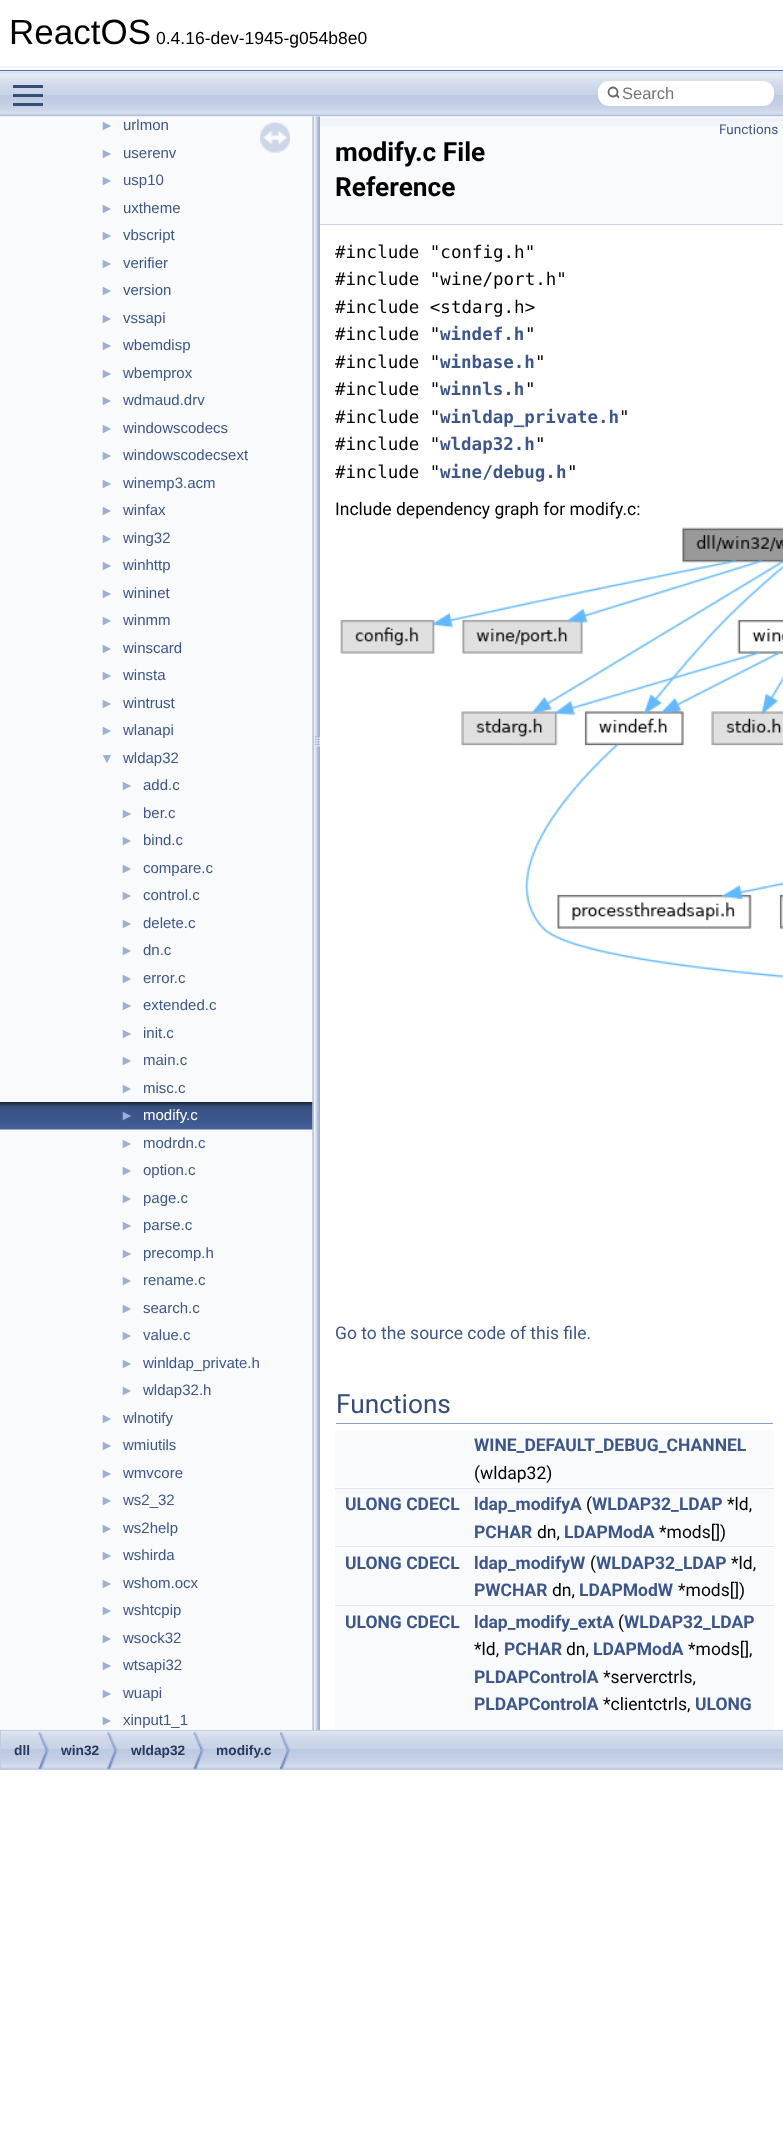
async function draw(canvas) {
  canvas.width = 783;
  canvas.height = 2130;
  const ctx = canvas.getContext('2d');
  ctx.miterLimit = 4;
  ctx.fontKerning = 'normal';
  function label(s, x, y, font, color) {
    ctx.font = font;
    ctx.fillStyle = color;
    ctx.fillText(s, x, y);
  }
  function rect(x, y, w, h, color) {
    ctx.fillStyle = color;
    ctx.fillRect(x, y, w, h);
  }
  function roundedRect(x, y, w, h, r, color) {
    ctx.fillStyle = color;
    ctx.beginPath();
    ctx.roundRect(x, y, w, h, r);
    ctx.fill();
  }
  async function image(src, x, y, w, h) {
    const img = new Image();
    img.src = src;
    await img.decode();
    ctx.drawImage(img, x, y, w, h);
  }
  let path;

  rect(0, 0, 783, 2130, '#fff');
  rect(0, 70, 783, 1, '#5373b4');
  label('ReactOS', 9, 44, '35px Liberation Sans', '#000');
  label('0.4.16-dev-1945-g054b8e0', 156, 44, '17.5px Liberation Sans', '#000');
  rect(0, 116, 313, 1614, '#f9fafc');
  await image('assets/img2.png', 0, 1102, 313, 28);
  await image('assets/img4.png', 312, 116, 8, 1614);
  rect(320, 116, 463, 108, '#f9fafc');
  await image('assets/img1.png', 0, 71, 783, 46);
  rect(13, 94, 30, 3, '#364d7c');
  rect(13, 85, 30, 3, '#364d7c');
  rect(13, 103, 30, 3, '#364d7c');
  roundedRect(598, 81, 176, 25, 11, '#fff');
  ctx.beginPath();
  ctx.arc(613, 92, 4.5, 0, 2 * Math.PI);
  ctx.strokeStyle = '#656565';
  ctx.lineWidth = 1.8;
  ctx.stroke();
  ctx.save();
  ctx.beginPath();
  ctx.rect(606, 81, 13, 24);
  ctx.clip();
  path = new Path2D('M616.5 95L620 98.5');
  ctx.lineCap = 'round';
  ctx.stroke(path);
  ctx.restore();
  label('Search', 622, 99, '16.5px Liberation Sans', '#757575');
  label('►', 100, 130, '14px Liberation Sans', '#9cafd4');
  label('urlmon', 123, 130, '15px Liberation Sans', '#3d578c');
  label('►', 100, 158, '14px Liberation Sans', '#9cafd4');
  label('userenv', 123, 158, '15px Liberation Sans', '#3d578c');
  label('►', 100, 185, '14px Liberation Sans', '#9cafd4');
  label('usp10', 123, 185, '15px Liberation Sans', '#3d578c');
  label('►', 100, 213, '14px Liberation Sans', '#9cafd4');
  label('uxtheme', 123, 213, '15px Liberation Sans', '#3d578c');
  label('►', 100, 240, '14px Liberation Sans', '#9cafd4');
  label('vbscript', 123, 240, '15px Liberation Sans', '#3d578c');
  label('►', 100, 268, '14px Liberation Sans', '#9cafd4');
  label('verifier', 123, 268, '15px Liberation Sans', '#3d578c');
  label('►', 100, 295, '14px Liberation Sans', '#9cafd4');
  label('version', 123, 295, '15px Liberation Sans', '#3d578c');
  label('►', 100, 323, '14px Liberation Sans', '#9cafd4');
  label('vssapi', 123, 323, '15px Liberation Sans', '#3d578c');
  label('►', 100, 350, '14px Liberation Sans', '#9cafd4');
  label('wbemdisp', 123, 350, '15px Liberation Sans', '#3d578c');
  label('►', 100, 378, '14px Liberation Sans', '#9cafd4');
  label('wbemprox', 123, 378, '15px Liberation Sans', '#3d578c');
  label('►', 100, 405, '14px Liberation Sans', '#9cafd4');
  label('wdmaud.drv', 123, 405, '15px Liberation Sans', '#3d578c');
  label('►', 100, 433, '14px Liberation Sans', '#9cafd4');
  label('windowscodecs', 123, 433, '15px Liberation Sans', '#3d578c');
  label('►', 100, 460, '14px Liberation Sans', '#9cafd4');
  label('windowscodecsext', 123, 460, '15px Liberation Sans', '#3d578c');
  label('►', 100, 488, '14px Liberation Sans', '#9cafd4');
  label('winemp3.acm', 123, 488, '15px Liberation Sans', '#3d578c');
  label('►', 100, 515, '14px Liberation Sans', '#9cafd4');
  label('winfax', 123, 515, '15px Liberation Sans', '#3d578c');
  label('►', 100, 543, '14px Liberation Sans', '#9cafd4');
  label('wing32', 123, 543, '15px Liberation Sans', '#3d578c');
  label('►', 100, 570, '14px Liberation Sans', '#9cafd4');
  label('winhttp', 123, 570, '15px Liberation Sans', '#3d578c');
  label('►', 100, 598, '14px Liberation Sans', '#9cafd4');
  label('wininet', 123, 598, '15px Liberation Sans', '#3d578c');
  label('►', 100, 625, '14px Liberation Sans', '#9cafd4');
  label('winmm', 123, 625, '15px Liberation Sans', '#3d578c');
  label('►', 100, 653, '14px Liberation Sans', '#9cafd4');
  label('winscard', 123, 653, '15px Liberation Sans', '#3d578c');
  label('►', 100, 680, '14px Liberation Sans', '#9cafd4');
  label('winsta', 123, 680, '15px Liberation Sans', '#3d578c');
  label('►', 100, 708, '14px Liberation Sans', '#9cafd4');
  label('wintrust', 123, 708, '15px Liberation Sans', '#3d578c');
  label('►', 100, 735, '14px Liberation Sans', '#9cafd4');
  label('wlanapi', 123, 735, '15px Liberation Sans', '#3d578c');
  label('▼', 100, 763, '14px Liberation Sans', '#9cafd4');
  label('wldap32', 123, 763, '15px Liberation Sans', '#3d578c');
  label('►', 120, 790, '14px Liberation Sans', '#9cafd4');
  label('add.c', 143, 790, '15px Liberation Sans', '#3d578c');
  label('►', 120, 818, '14px Liberation Sans', '#9cafd4');
  label('ber.c', 143, 818, '15px Liberation Sans', '#3d578c');
  label('►', 120, 845, '14px Liberation Sans', '#9cafd4');
  label('bind.c', 143, 845, '15px Liberation Sans', '#3d578c');
  label('►', 120, 873, '14px Liberation Sans', '#9cafd4');
  label('compare.c', 143, 873, '15px Liberation Sans', '#3d578c');
  label('►', 120, 900, '14px Liberation Sans', '#9cafd4');
  label('control.c', 143, 900, '15px Liberation Sans', '#3d578c');
  label('►', 120, 928, '14px Liberation Sans', '#9cafd4');
  label('delete.c', 143, 928, '15px Liberation Sans', '#3d578c');
  label('►', 120, 955, '14px Liberation Sans', '#9cafd4');
  label('dn.c', 143, 955, '15px Liberation Sans', '#3d578c');
  label('►', 120, 983, '14px Liberation Sans', '#9cafd4');
  label('error.c', 143, 983, '15px Liberation Sans', '#3d578c');
  label('►', 120, 1010, '14px Liberation Sans', '#9cafd4');
  label('extended.c', 143, 1010, '15px Liberation Sans', '#3d578c');
  label('►', 120, 1038, '14px Liberation Sans', '#9cafd4');
  label('init.c', 143, 1038, '15px Liberation Sans', '#3d578c');
  label('►', 120, 1065, '14px Liberation Sans', '#9cafd4');
  label('main.c', 143, 1065, '15px Liberation Sans', '#3d578c');
  label('►', 120, 1093, '14px Liberation Sans', '#9cafd4');
  label('misc.c', 143, 1093, '15px Liberation Sans', '#3d578c');
  label('►', 120, 1120, '14px Liberation Sans', '#9cafd4');
  label('modify.c', 143, 1120, '15px Liberation Sans', '#fff');
  label('►', 120, 1148, '14px Liberation Sans', '#9cafd4');
  label('modrdn.c', 143, 1148, '15px Liberation Sans', '#3d578c');
  label('►', 120, 1175, '14px Liberation Sans', '#9cafd4');
  label('option.c', 143, 1175, '15px Liberation Sans', '#3d578c');
  label('►', 120, 1203, '14px Liberation Sans', '#9cafd4');
  label('page.c', 143, 1203, '15px Liberation Sans', '#3d578c');
  label('►', 120, 1230, '14px Liberation Sans', '#9cafd4');
  label('parse.c', 143, 1230, '15px Liberation Sans', '#3d578c');
  label('►', 120, 1258, '14px Liberation Sans', '#9cafd4');
  label('precomp.h', 143, 1258, '15px Liberation Sans', '#3d578c');
  label('►', 120, 1285, '14px Liberation Sans', '#9cafd4');
  label('rename.c', 143, 1285, '15px Liberation Sans', '#3d578c');
  label('►', 120, 1313, '14px Liberation Sans', '#9cafd4');
  label('search.c', 143, 1313, '15px Liberation Sans', '#3d578c');
  label('►', 120, 1340, '14px Liberation Sans', '#9cafd4');
  label('value.c', 143, 1340, '15px Liberation Sans', '#3d578c');
  label('►', 120, 1368, '14px Liberation Sans', '#9cafd4');
  label('winldap_private.h', 143, 1368, '15px Liberation Sans', '#3d578c');
  label('►', 120, 1395, '14px Liberation Sans', '#9cafd4');
  label('wldap32.h', 143, 1395, '15px Liberation Sans', '#3d578c');
  label('►', 100, 1423, '14px Liberation Sans', '#9cafd4');
  label('wlnotify', 123, 1423, '15px Liberation Sans', '#3d578c');
  label('►', 100, 1450, '14px Liberation Sans', '#9cafd4');
  label('wmiutils', 123, 1450, '15px Liberation Sans', '#3d578c');
  label('►', 100, 1478, '14px Liberation Sans', '#9cafd4');
  label('wmvcore', 123, 1478, '15px Liberation Sans', '#3d578c');
  label('►', 100, 1505, '14px Liberation Sans', '#9cafd4');
  label('ws2_32', 123, 1505, '15px Liberation Sans', '#3d578c');
  label('►', 100, 1533, '14px Liberation Sans', '#9cafd4');
  label('ws2help', 123, 1533, '15px Liberation Sans', '#3d578c');
  label('►', 100, 1560, '14px Liberation Sans', '#9cafd4');
  label('wshirda', 123, 1560, '15px Liberation Sans', '#3d578c');
  label('►', 100, 1588, '14px Liberation Sans', '#9cafd4');
  label('wshom.ocx', 123, 1588, '15px Liberation Sans', '#3d578c');
  label('►', 100, 1615, '14px Liberation Sans', '#9cafd4');
  label('wshtcpip', 123, 1615, '15px Liberation Sans', '#3d578c');
  label('►', 100, 1643, '14px Liberation Sans', '#9cafd4');
  label('wsock32', 123, 1643, '15px Liberation Sans', '#3d578c');
  label('►', 100, 1670, '14px Liberation Sans', '#9cafd4');
  label('wtsapi32', 123, 1670, '15px Liberation Sans', '#3d578c');
  label('►', 100, 1698, '14px Liberation Sans', '#9cafd4');
  label('wuapi', 123, 1698, '15px Liberation Sans', '#3d578c');
  label('►', 100, 1725, '14px Liberation Sans', '#9cafd4');
  label('xinput1_1', 123, 1725, '15px Liberation Sans', '#3d578c');
  await image('assets/img3.png', 260, 122, 30, 31);
  await image('assets/img5.png', 320, 118, 463, 8);
  rect(320, 224, 463, 1, '#c4cfe5');
  label('Functions', 719, 134, '13.5px Roboto', '#3d578c');
  label('modify.c File', 335, 161, 'bold 26.25px Roboto', '#000');
  label('Reference', 335, 196, 'bold 26.25px Roboto', '#000');
  label('#include "config.h"', 335, 258, '17.5px DejaVu Sans Mono', '#000');
  label('#include "wine/port.h"', 335, 285, '17.5px DejaVu Sans Mono', '#000');
  label('#include <stdarg.h>', 335, 313, '17.5px DejaVu Sans Mono', '#000');
  label('#include "', 335, 340, '17.5px DejaVu Sans Mono', '#000');
  label('windef.h', 440, 340, 'bold 17.5px DejaVu Sans Mono', '#3d578c');
  label('"', 525, 340, '17.5px DejaVu Sans Mono', '#000');
  label('#include "', 335, 368, '17.5px DejaVu Sans Mono', '#000');
  label('winbase.h', 440, 368, 'bold 17.5px DejaVu Sans Mono', '#3d578c');
  label('"', 535, 368, '17.5px DejaVu Sans Mono', '#000');
  label('#include "', 335, 395, '17.5px DejaVu Sans Mono', '#000');
  label('winnls.h', 440, 395, 'bold 17.5px DejaVu Sans Mono', '#3d578c');
  label('"', 525, 395, '17.5px DejaVu Sans Mono', '#000');
  label('#include "', 335, 423, '17.5px DejaVu Sans Mono', '#000');
  label('winldap_private.h', 440, 423, 'bold 17.5px DejaVu Sans Mono', '#3d578c');
  label('"', 619, 423, '17.5px DejaVu Sans Mono', '#000');
  label('#include "', 335, 450, '17.5px DejaVu Sans Mono', '#000');
  label('wldap32.h', 440, 450, 'bold 17.5px DejaVu Sans Mono', '#3d578c');
  label('"', 535, 450, '17.5px DejaVu Sans Mono', '#000');
  label('#include "', 335, 478, '17.5px DejaVu Sans Mono', '#000');
  label('wine/debug.h', 440, 478, 'bold 17.5px DejaVu Sans Mono', '#3d578c');
  label('"', 567, 478, '17.5px DejaVu Sans Mono', '#000');
  label('Include dependency graph for modify.c:', 335, 515, '17.5px Roboto', '#000');
  await image('assets/img6.png', 340, 527, 443, 451);
  label('Go to the source code of this file.', 335, 1339, '17.5px Roboto', '#3d578c');
  rect(336, 1423, 437, 1, '#879ecb');
  label('Functions', 336, 1413, '26.25px Roboto', '#354c7b');
  rect(335, 1430, 439, 56, '#f9fafc');
  label('WINE_DEFAULT_DEBUG_CHANNEL', 474, 1451, 'bold 17.5px Roboto', '#3d578c');
  label('(wldap32)', 474, 1479, '17.5px Roboto', '#000');
  rect(335, 1488, 439, 1, '#dee4f0');
  rect(335, 1489, 439, 56, '#f9fafc');
  label('ULONG CDECL', 345, 1510, 'bold 17.5px Roboto', '#3d578c');
  label('ldap_modifyA', 474, 1510, 'bold 17.5px Roboto', '#3d578c');
  label('(', 586, 1510, '17.5px Roboto', '#000');
  label('WLDAP32_LDAP', 592, 1510, 'bold 17.5px Roboto', '#3d578c');
  label('*ld,', 727, 1510, '17.5px Roboto', '#000');
  label('PCHAR', 474, 1538, 'bold 17.5px Roboto', '#3d578c');
  label('dn,', 537, 1538, '17.5px Roboto', '#000');
  label('LDAPModA', 564, 1538, 'bold 17.5px Roboto', '#3d578c');
  label('*mods[])', 659, 1538, '17.5px Roboto', '#000');
  rect(335, 1546, 439, 1, '#dee4f0');
  rect(335, 1548, 439, 56, '#f9fafc');
  label('ULONG CDECL', 345, 1569, 'bold 17.5px Roboto', '#3d578c');
  label('ldap_modifyW', 474, 1569, 'bold 17.5px Roboto', '#3d578c');
  label('(', 590, 1569, '17.5px Roboto', '#000');
  label('WLDAP32_LDAP', 596, 1569, 'bold 17.5px Roboto', '#3d578c');
  label('*ld,', 731, 1569, '17.5px Roboto', '#000');
  label('PWCHAR', 474, 1596, 'bold 17.5px Roboto', '#3d578c');
  label('dn,', 552, 1596, '17.5px Roboto', '#000');
  label('LDAPModW', 579, 1596, 'bold 17.5px Roboto', '#3d578c');
  label('*mods[])', 678, 1596, '17.5px Roboto', '#000');
  rect(335, 1605, 439, 1, '#dee4f0');
  rect(335, 1606, 439, 124, '#f9fafc');
  label('ULONG CDECL', 345, 1628, 'bold 17.5px Roboto', '#3d578c');
  label('ldap_modify_extA', 474, 1628, 'bold 17.5px Roboto', '#3d578c');
  label('(', 618, 1628, '17.5px Roboto', '#000');
  label('WLDAP32_LDAP', 624, 1628, 'bold 17.5px Roboto', '#3d578c');
  label('*ld,', 474, 1655, '17.5px Roboto', '#000');
  label('PCHAR', 504, 1655, 'bold 17.5px Roboto', '#3d578c');
  label('dn,', 566, 1655, '17.5px Roboto', '#000');
  label('LDAPModA', 593, 1655, 'bold 17.5px Roboto', '#3d578c');
  label('*mods[],', 688, 1655, '17.5px Roboto', '#000');
  label('PLDAPControlA', 474, 1683, 'bold 17.5px Roboto', '#3d578c');
  label('*serverctrls,', 603, 1683, '17.5px Roboto', '#000');
  label('PLDAPControlA', 474, 1710, 'bold 17.5px Roboto', '#3d578c');
  label('*clientctrls,', 603, 1710, '17.5px Roboto', '#000');
  label('ULONG', 695, 1710, 'bold 17.5px Roboto', '#3d578c');
  await image('assets/img7.png', 1, 1731, 782, 38);
  ctx.strokeStyle = '#c2cde4';
  ctx.lineWidth = 1;
  ctx.strokeRect(0.5, 1730.5, 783, 39);
  await image('assets/img8.png', 38, 1732, 11, 37);
  label('dll', 14, 1755, 'bold 13.75px Liberation Sans', '#283a5d');
  await image('assets/img9.png', 107, 1732, 11, 37);
  label('win32', 61, 1755, 'bold 13.75px Liberation Sans', '#283a5d');
  await image('assets/img8.png', 193, 1732, 11, 37);
  label('wldap32', 131, 1755, 'bold 13.75px Liberation Sans', '#283a5d');
  await image('assets/img10.png', 280, 1732, 10, 37);
  label('modify.c', 216, 1755, 'bold 13.75px Liberation Sans', '#283a5d');
}

draw(document.querySelector('canvas'));
